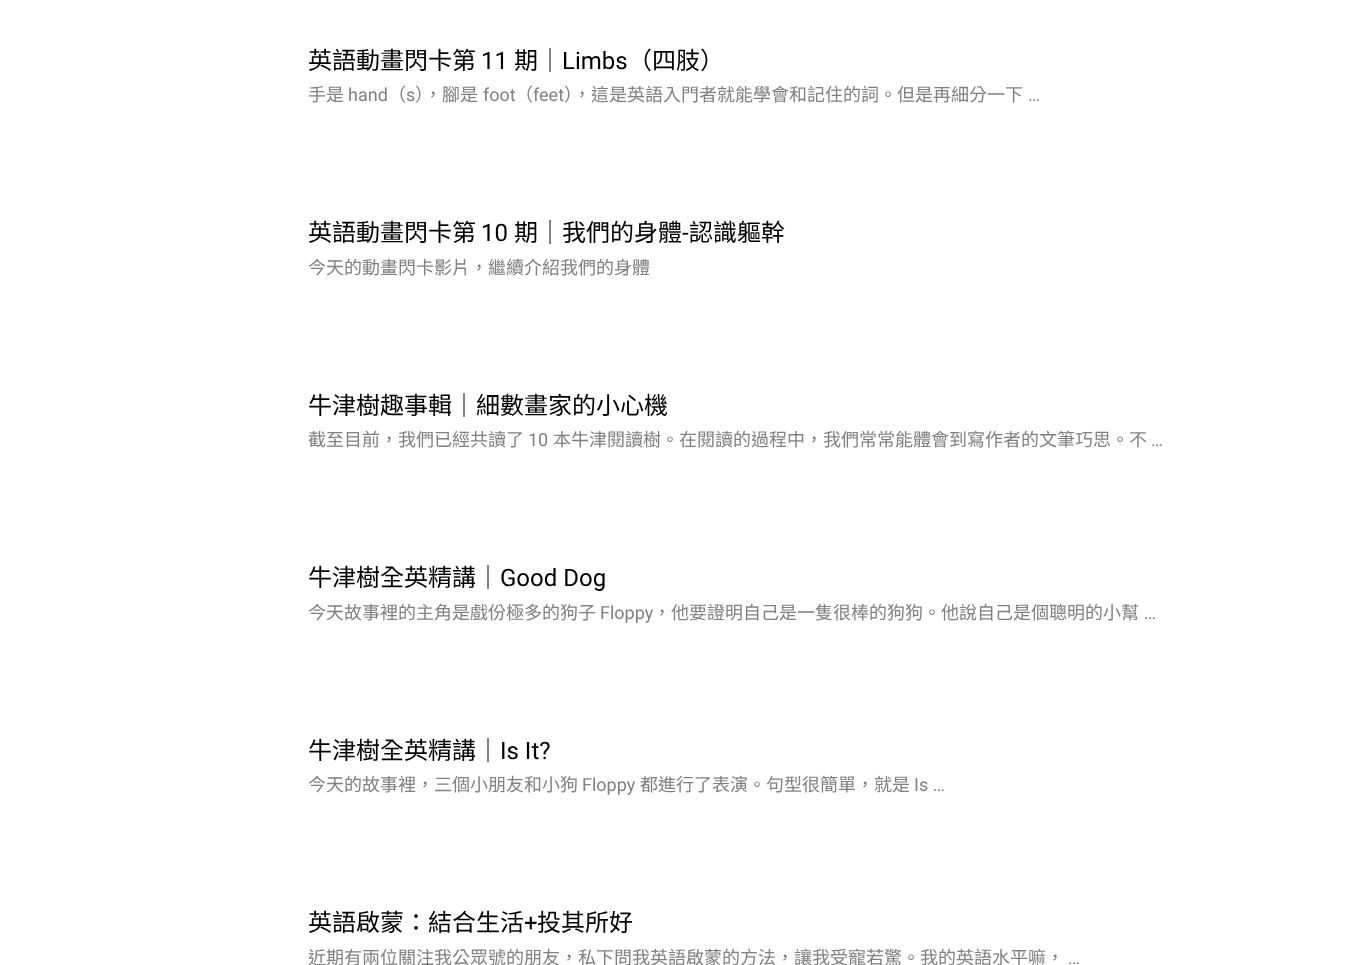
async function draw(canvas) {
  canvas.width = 1365;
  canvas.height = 965;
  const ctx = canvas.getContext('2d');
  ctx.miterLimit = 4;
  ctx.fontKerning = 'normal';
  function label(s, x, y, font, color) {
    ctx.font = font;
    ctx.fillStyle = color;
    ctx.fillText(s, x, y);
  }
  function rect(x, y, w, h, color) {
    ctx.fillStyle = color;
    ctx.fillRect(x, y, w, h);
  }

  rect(0, 0, 1365, 965, '#fff');
  label('英語動畫閃卡第', 308, 69, '24px Noto Sans CJK TC', '#000');
  label('11', 481, 69, '24px Roboto', '#000');
  label('期｜', 514, 69, '24px Noto Sans CJK TC', '#000');
  label('Limbs', 562, 69, '24px Roboto', '#000');
  label('（四肢）', 628, 69, '24px Noto Sans CJK TC', '#000');
  label('手是', 308, 101, '18px Noto Sans CJK TC', '#808080');
  label('hand', 348, 101, '18px Roboto', '#808080');
  label('（', 388, 101, '18px Noto Sans CJK TC', '#808080');
  label('s', 406, 101, '18px Roboto', '#808080');
  label('），腳是', 415, 101, '18px Noto Sans CJK TC', '#808080');
  label('foot', 483, 101, '18px Roboto', '#808080');
  label('（', 515, 101, '18px Noto Sans CJK TC', '#808080');
  label('feet', 533, 101, '18px Roboto', '#808080');
  label('），這是英語入門者就能學會和記住的詞。但是再細分一下', 564, 101, '18px Noto Sans CJK TC', '#808080');
  label('…', 1028, 101, '18px Roboto', '#808080');
  label('英語動畫閃卡第', 308, 241, '24px Noto Sans CJK TC', '#000');
  label('10', 481, 241, '24px Roboto', '#000');
  label('期｜我們的身體', 514, 241, '24px Noto Sans CJK TC', '#000');
  label('-', 682, 241, '24px Roboto', '#000');
  label('認識軀幹', 689, 241, '24px Noto Sans CJK TC', '#000');
  label('今天的動畫閃卡影片，繼續介紹我們的身體', 308, 274, '18px Noto Sans CJK TC', '#808080');
  label('牛津樹趣事輯｜細數畫家的小心機', 308, 414, '24px Noto Sans CJK TC', '#000');
  label('截至目前，我們已經共讀了', 308, 446, '18px Noto Sans CJK TC', '#808080');
  label('10', 528, 446, '18px Roboto', '#808080');
  label('本牛津閱讀樹。在閱讀的過程中，我們常常能體會到寫作者的文筆巧思。不', 553, 446, '18px Noto Sans CJK TC', '#808080');
  label('…', 1151, 446, '18px Roboto', '#808080');
  label('牛津樹全英精講｜', 308, 586, '24px Noto Sans CJK TC', '#000');
  label('Good Dog', 500, 586, '24px Roboto', '#000');
  label('今天故事裡的主角是戲份極多的狗子', 308, 619, '18px Noto Sans CJK TC', '#808080');
  label('Floppy', 600, 619, '18px Roboto', '#808080');
  label('，他要證明自己是一隻很棒的狗狗。他說自己是個聰明的小幫', 653, 619, '18px Noto Sans CJK TC', '#808080');
  label('…', 1144, 619, '18px Roboto', '#808080');
  label('牛津樹全英精講｜', 308, 759, '24px Noto Sans CJK TC', '#000');
  label('Is It?', 500, 759, '24px Roboto', '#000');
  label('今天的故事裡，三個小朋友和小狗', 308, 791, '18px Noto Sans CJK TC', '#808080');
  label('Floppy', 582, 791, '18px Roboto', '#808080');
  label('都進行了表演。句型很簡單，就是', 640, 791, '18px Noto Sans CJK TC', '#808080');
  label('Is …', 914, 791, '18px Roboto', '#808080');
  label('英語啟蒙：結合生活', 308, 931, '24px Noto Sans CJK TC', '#000');
  label('+', 524, 931, '24px Roboto', '#000');
  label('投其所好', 537, 931, '24px Noto Sans CJK TC', '#000');
  label('近期有兩位關注我公眾號的朋友，私下問我英語啟蒙的方法，讓我受寵若驚。我的英語水平嘛，', 308, 964, '18px Noto Sans CJK TC', '#808080');
  label('…', 1068, 964, '18px Roboto', '#808080');
}

draw(document.querySelector('canvas'));
